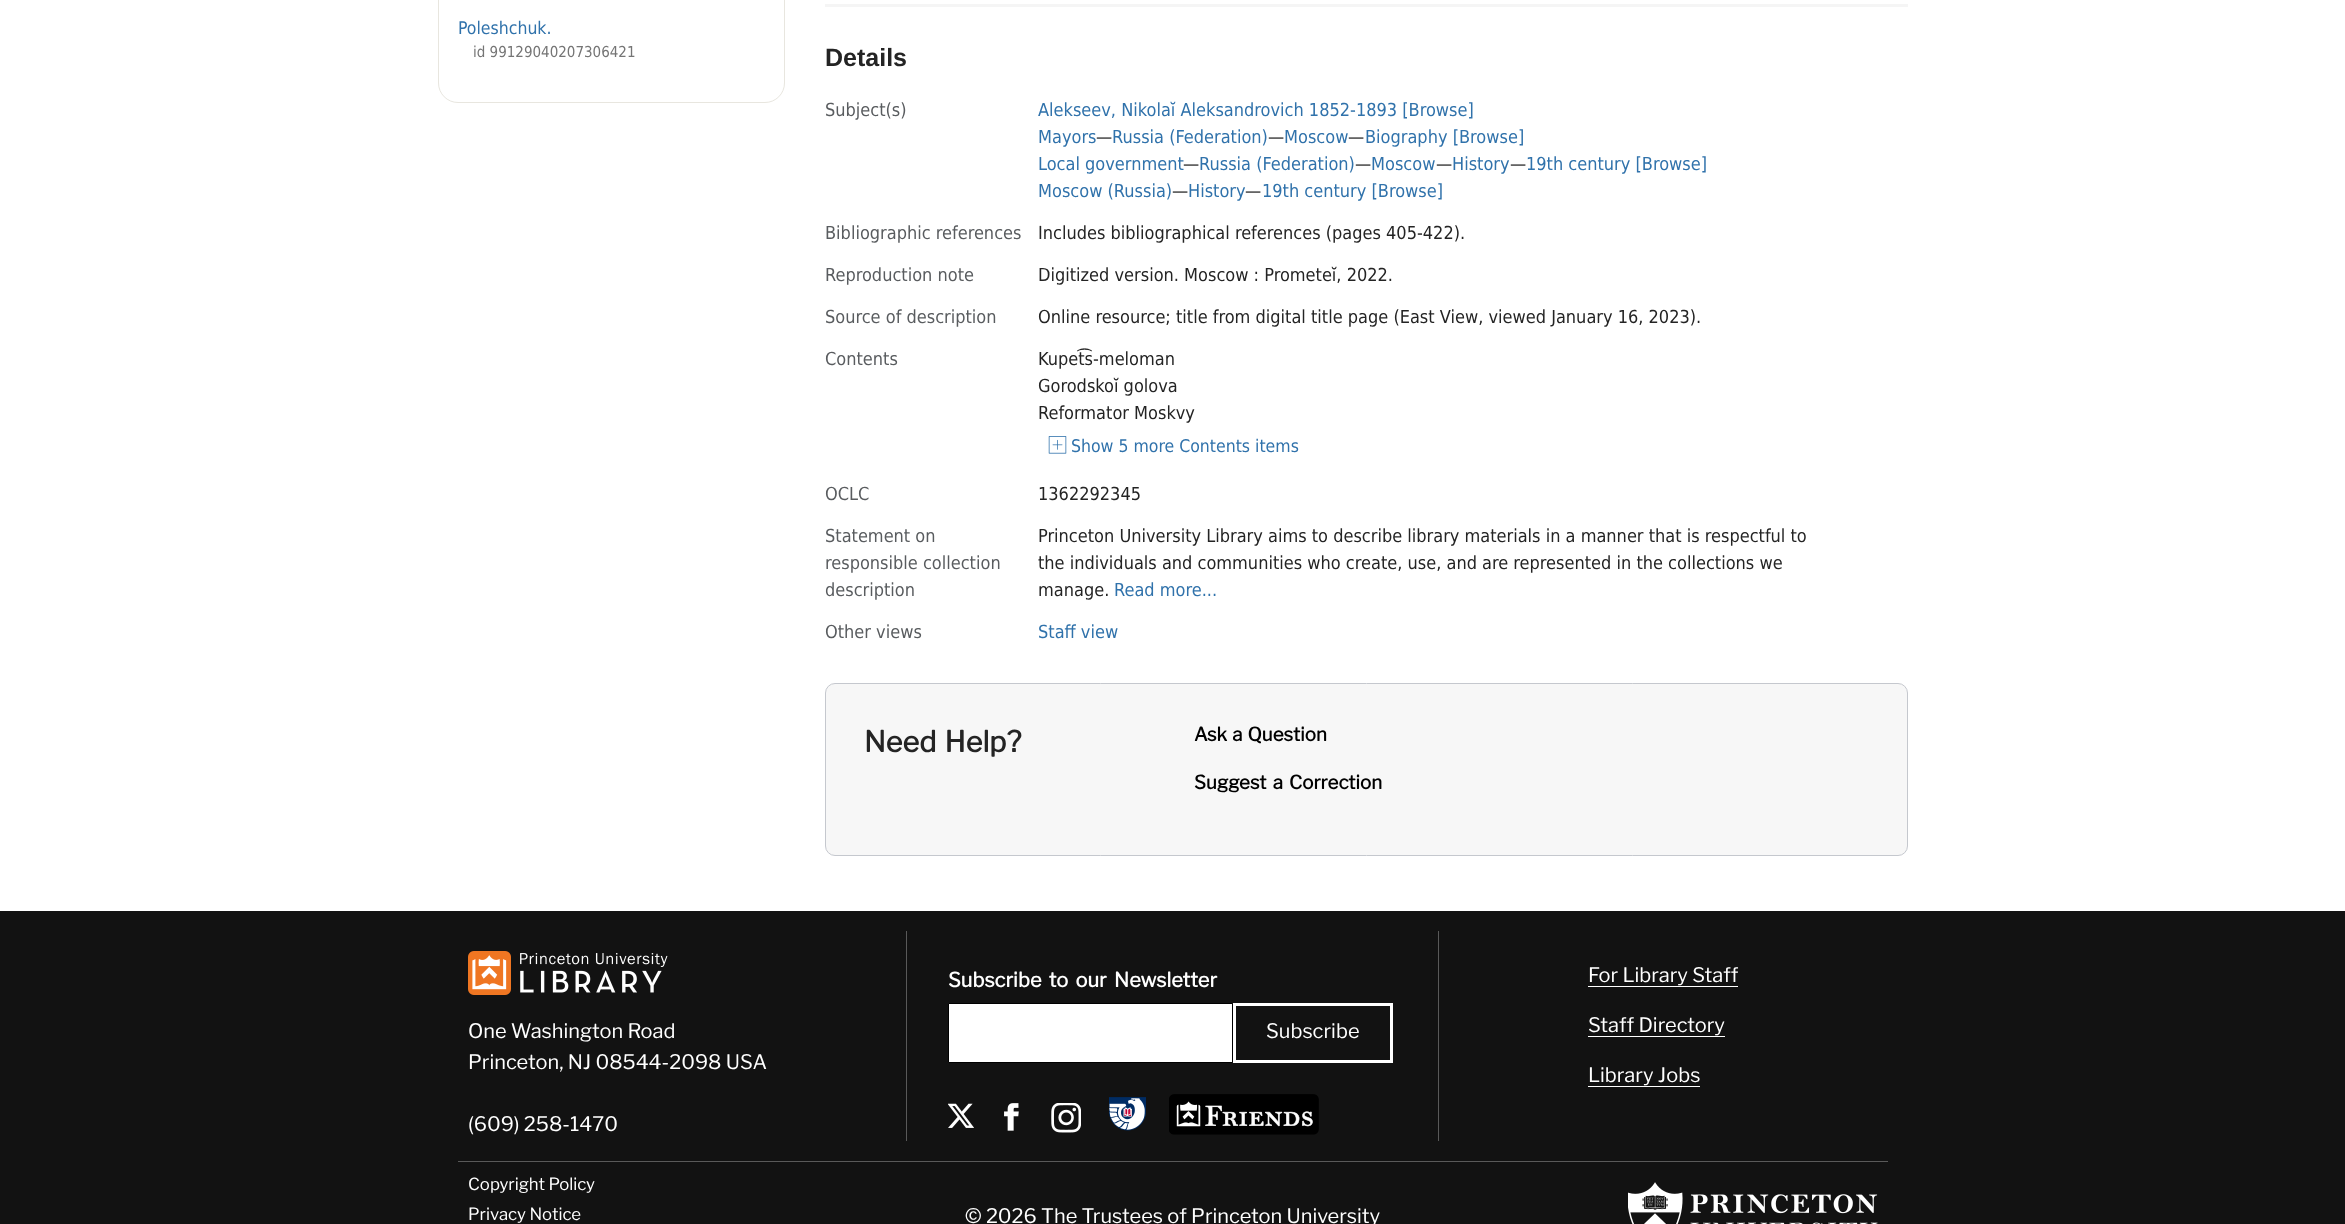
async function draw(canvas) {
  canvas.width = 2345;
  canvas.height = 1224;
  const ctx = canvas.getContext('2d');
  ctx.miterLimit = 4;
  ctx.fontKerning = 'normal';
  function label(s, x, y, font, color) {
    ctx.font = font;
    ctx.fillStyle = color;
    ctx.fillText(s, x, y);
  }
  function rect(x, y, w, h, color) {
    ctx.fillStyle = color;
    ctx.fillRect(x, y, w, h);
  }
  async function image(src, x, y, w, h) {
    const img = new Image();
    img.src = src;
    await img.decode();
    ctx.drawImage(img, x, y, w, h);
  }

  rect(0, 0, 2345, 1224, '#fff');
  ctx.beginPath();
  ctx.roundRect(438.5, -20.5, 346, 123, 19.5);
  ctx.strokeStyle = '#e8e6df';
  ctx.stroke();
  label('Poleshchuk.', 458, 34, '17.5px DejaVu Sans', '#3072ab');
  label('id 99129040207306421', 473, 57, '15px DejaVu Sans', '#757575');
  rect(825, 4, 1083, 3, '#f5f5f5');
  label('Details', 825, 66, 'bold 25px Liberation Sans', '#242424');
  label('Subject(s)', 825, 116, '18px DejaVu Sans', '#595c5f');
  label('Alekseev, Nikolaĭ Aleksandrovich 1852-1893 [Browse]', 1038, 116, '18px DejaVu Sans', '#3072ab');
  label('Mayors', 1038, 143, '18px DejaVu Sans', '#3072ab');
  label('—', 1096, 143, '18px DejaVu Sans', '#242424');
  label('Russia (Federation)', 1112, 143, '18px DejaVu Sans', '#3072ab');
  label('—', 1268, 143, '18px DejaVu Sans', '#242424');
  label('Moscow', 1284, 143, '18px DejaVu Sans', '#3072ab');
  label('—', 1348, 143, '18px DejaVu Sans', '#242424');
  label('Biography [Browse]', 1365, 143, '18px DejaVu Sans', '#3072ab');
  label('Local government', 1038, 170, '18px DejaVu Sans', '#3072ab');
  label('—', 1183, 170, '18px DejaVu Sans', '#242424');
  label('Russia (Federation)', 1199, 170, '18px DejaVu Sans', '#3072ab');
  label('—', 1355, 170, '18px DejaVu Sans', '#242424');
  label('Moscow', 1371, 170, '18px DejaVu Sans', '#3072ab');
  label('—', 1436, 170, '18px DejaVu Sans', '#242424');
  label('History', 1452, 170, '18px DejaVu Sans', '#3072ab');
  label('—', 1510, 170, '18px DejaVu Sans', '#242424');
  label('19th century [Browse]', 1526, 170, '18px DejaVu Sans', '#3072ab');
  label('Moscow (Russia)', 1038, 197, '18px DejaVu Sans', '#3072ab');
  label('—', 1172, 197, '18px DejaVu Sans', '#242424');
  label('History', 1188, 197, '18px DejaVu Sans', '#3072ab');
  label('—', 1245, 197, '18px DejaVu Sans', '#242424');
  label('19th century [Browse]', 1262, 197, '18px DejaVu Sans', '#3072ab');
  label('Bibliographic references', 825, 239, '18px DejaVu Sans', '#595c5f');
  label('Includes bibliographical references (pages 405-422).', 1038, 239, '18px DejaVu Sans', '#242424');
  label('Reproduction note', 825, 281, '18px DejaVu Sans', '#595c5f');
  label('Digitized version. Moscow : Prometeĭ, 2022.', 1038, 281, '18px DejaVu Sans', '#242424');
  label('Source of description', 825, 323, '18px DejaVu Sans', '#595c5f');
  label('Online resource; title from digital title page (East View, viewed January 16, 2023).', 1038, 323, '18px DejaVu Sans', '#242424');
  label('Contents', 825, 365, '18px DejaVu Sans', '#595c5f');
  label('Kupet︠s︡-meloman', 1038, 365, '18px DejaVu Sans', '#242424');
  label('Gorodskoĭ golova', 1038, 392, '18px DejaVu Sans', '#242424');
  label('Reformator Moskvy', 1038, 419, '18px DejaVu Sans', '#242424');
  await image('assets/img1.png', 1048, 436, 19, 18);
  label('Show 5 more Contents items', 1071, 452, '17.5px DejaVu Sans', '#3072ab');
  label('OCLC', 825, 500, '18px DejaVu Sans', '#595c5f');
  label('1362292345', 1038, 500, '18px DejaVu Sans', '#242424');
  label('Statement on', 825, 542, '18px DejaVu Sans', '#595c5f');
  label('responsible collection', 825, 569, '18px DejaVu Sans', '#595c5f');
  label('description', 825, 596, '18px DejaVu Sans', '#595c5f');
  label('Princeton University Library aims to describe library materials in a manner that is respectful to', 1038, 542, '18px DejaVu Sans', '#242424');
  label('the individuals and communities who create, use, and are represented in the collections we', 1038, 569, '18px DejaVu Sans', '#242424');
  label('manage.', 1038, 596, '18px DejaVu Sans', '#242424');
  label('Read more...', 1114, 596, '18px DejaVu Sans', '#3072ab');
  label('Other views', 825, 638, '18px DejaVu Sans', '#595c5f');
  label('Staff view', 1038, 638, '18px DejaVu Sans', '#3072ab');
  ctx.fillStyle = '#f7f7f7';
  ctx.beginPath();
  ctx.roundRect(825.5, 683.5, 1082, 172, 9.5);
  ctx.fill();
  ctx.strokeStyle = '#c5c8ce';
  ctx.stroke();
  ctx.wordSpacing = '2px';
  label('Need Help?', 864, 752, 'bold 28.75px Libre Franklin', '#242424');
  ctx.wordSpacing = '1px';
  label('Ask a Question', 1194, 741, 'bold 18.75px Libre Franklin', '#000');
  ctx.wordSpacing = '2px';
  label('Suggest a Correction', 1194, 789, 'bold 18.75px Libre Franklin', '#000');
  rect(0, 911, 2345, 313, '#121212');
  rect(1438, 931, 1, 210, '#595959');
  ctx.wordSpacing = '3px';
  label('Subscribe to our Newsletter', 948, 987, 'bold 20px Libre Franklin', '#fff');
  ctx.beginPath();
  ctx.rect(948.5, 1003.5, 284, 59);
  ctx.fill();
  ctx.strokeStyle = '#000';
  ctx.stroke();
  ctx.strokeStyle = '#fff';
  ctx.lineWidth = 3;
  ctx.strokeRect(1234.5, 1004.5, 157, 57);
  ctx.wordSpacing = '0px';
  label('Subscribe', 1266, 1038, '20px Libre Franklin', '#fff');
  await image('assets/img2.png', 948, 1103, 26, 25);
  await image('assets/img3.png', 1004, 1103, 15, 28);
  await image('assets/img4.png', 1051, 1103, 30, 30);
  await image('assets/img5.png', 1109, 1097, 37, 34);
  await image('assets/img6.png', 1169, 1094, 150, 41);
  label('For Library Staff', 1588, 982, '20px Libre Franklin', '#fff');
  rect(1588, 986, 150, 1, '#fff');
  label('Staff Directory', 1588, 1032, '20px Libre Franklin', '#fff');
  rect(1588, 1036, 137, 1, '#fff');
  label('Library Jobs', 1588, 1082, '20px Libre Franklin', '#fff');
  rect(1588, 1086, 112, 1, '#fff');
  rect(906, 931, 1, 210, '#595959');
  await image('assets/img7.png', 468, 951, 200, 44);
  label('One Washington Road', 468, 1038, '20px Libre Franklin', '#fff');
  label('Princeton, NJ 08544-2098 USA', 468, 1069, '20px Libre Franklin', '#fff');
  label('(609) 258-1470', 468, 1131, '20px Libre Franklin', '#fff');
  rect(458, 1161, 1430, 1, '#595959');
  label('Copyright Policy', 468, 1190, '16.75px Libre Franklin', '#fff');
  label('Privacy Notice', 468, 1220, '16.75px Libre Franklin', '#fff');
  label('© 2026 The Trustees of Princeton University', 965, 1223, '20px Libre Franklin', '#fff');
  await image('assets/img8.png', 1628, 1182, 250, 42);
}

draw(document.querySelector('canvas'));
